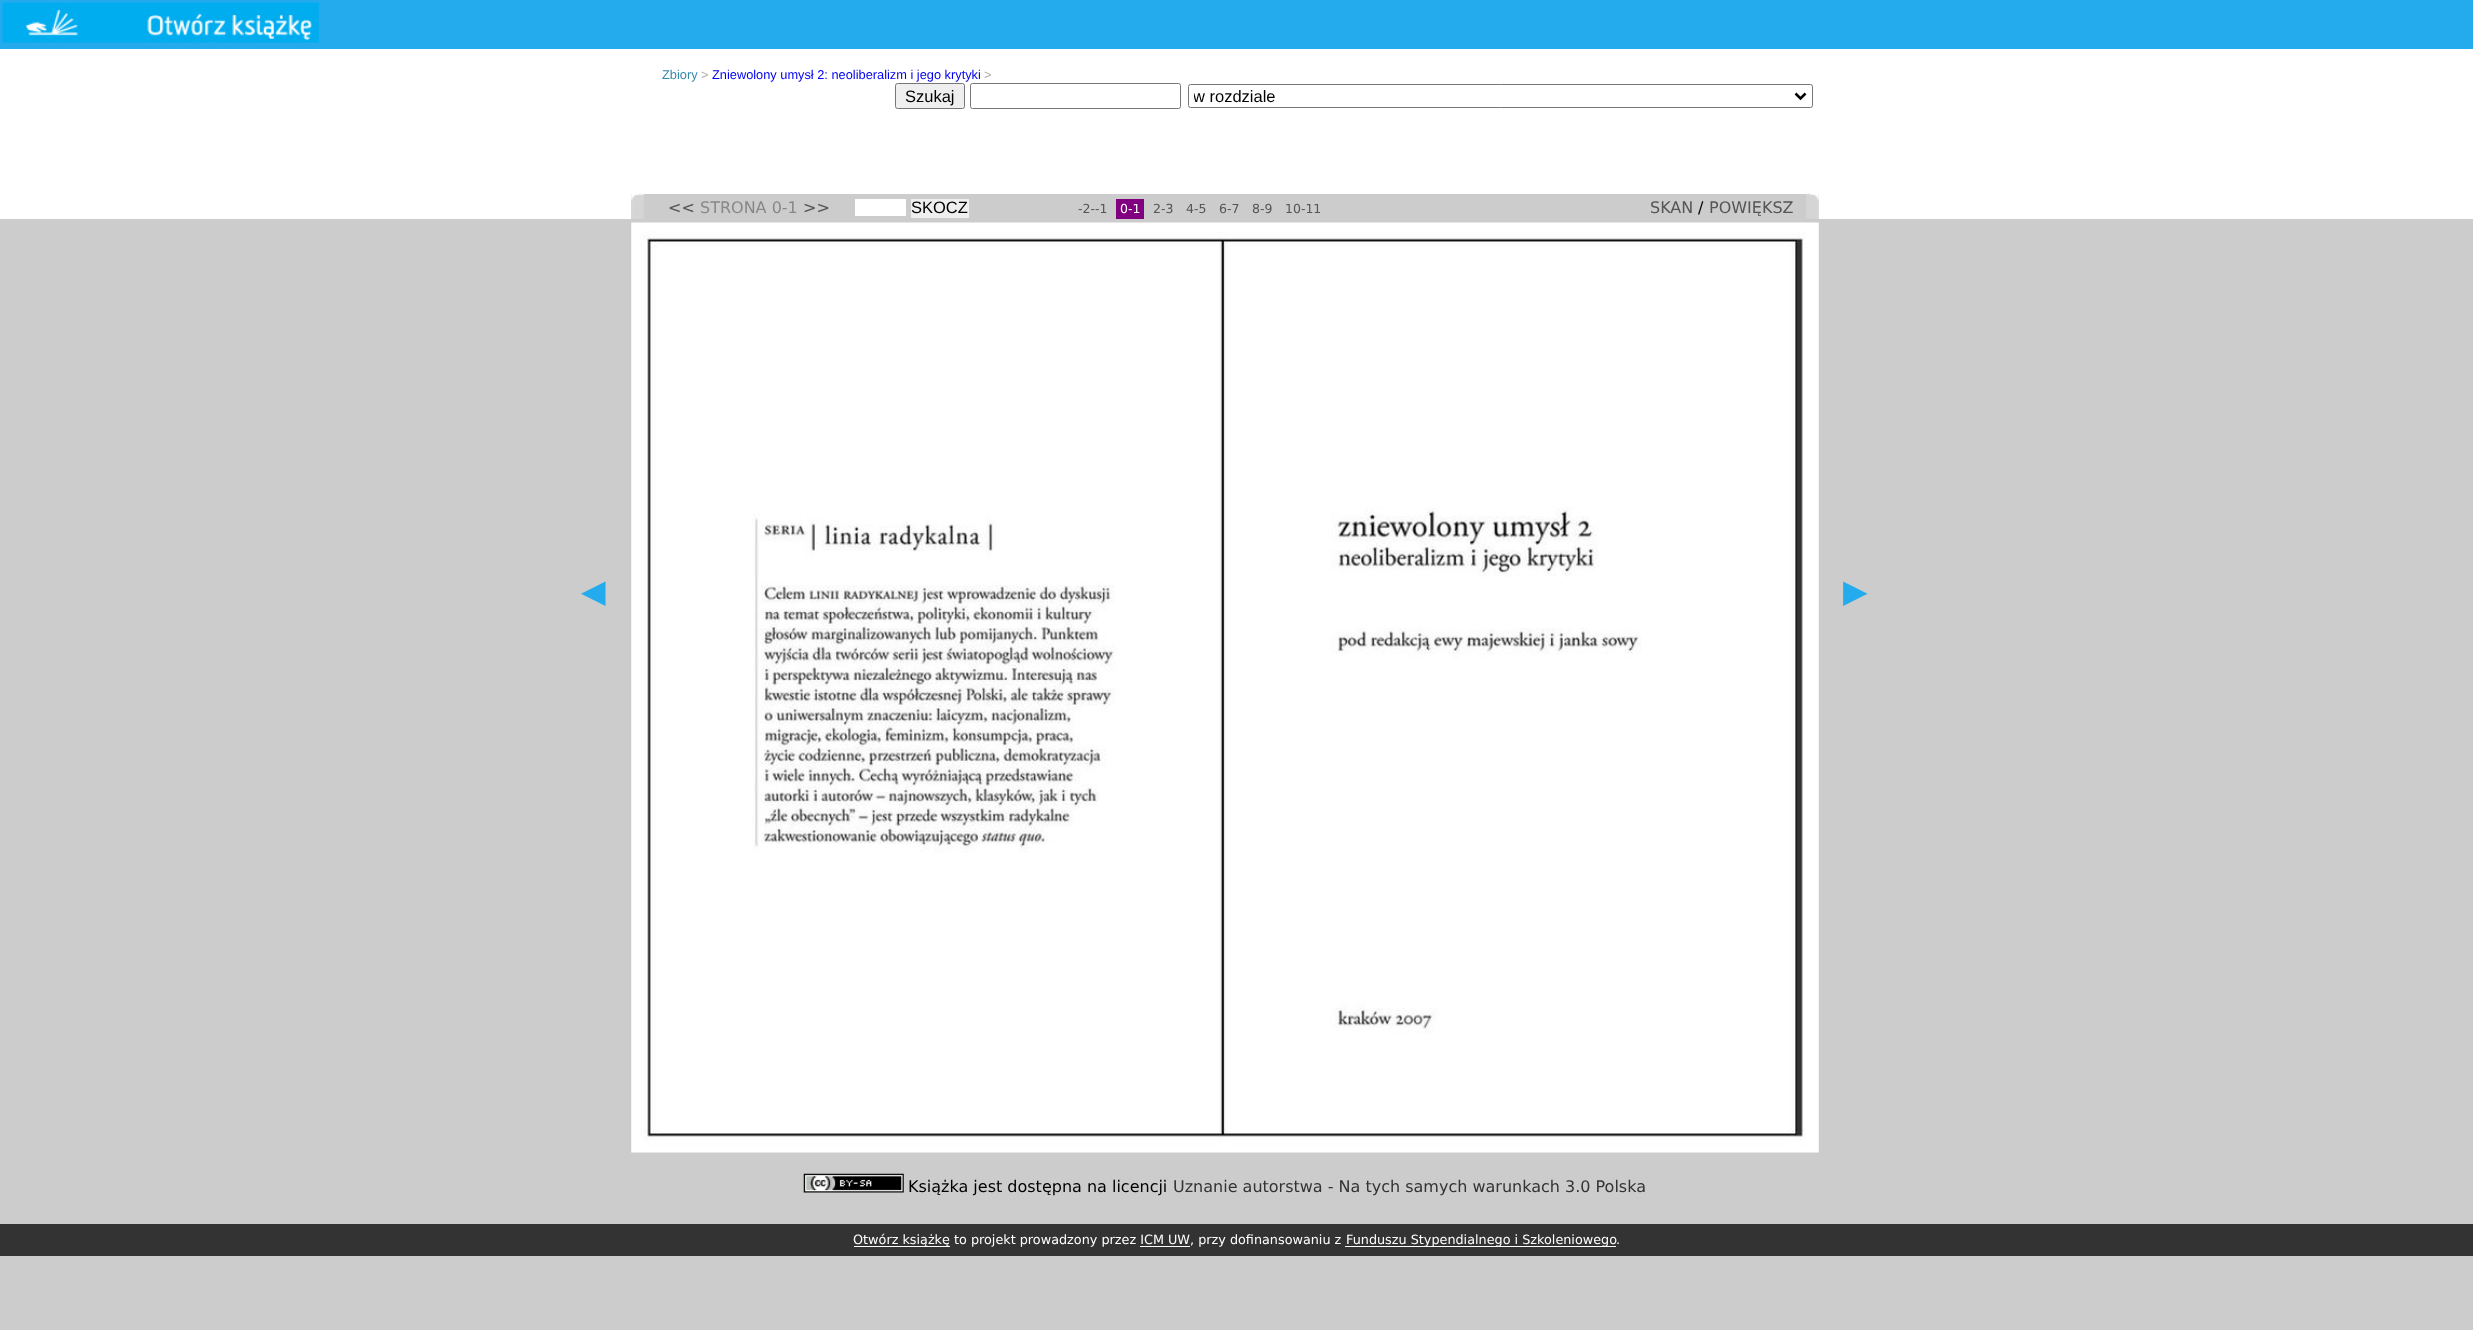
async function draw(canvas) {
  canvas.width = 2473;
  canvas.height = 1330;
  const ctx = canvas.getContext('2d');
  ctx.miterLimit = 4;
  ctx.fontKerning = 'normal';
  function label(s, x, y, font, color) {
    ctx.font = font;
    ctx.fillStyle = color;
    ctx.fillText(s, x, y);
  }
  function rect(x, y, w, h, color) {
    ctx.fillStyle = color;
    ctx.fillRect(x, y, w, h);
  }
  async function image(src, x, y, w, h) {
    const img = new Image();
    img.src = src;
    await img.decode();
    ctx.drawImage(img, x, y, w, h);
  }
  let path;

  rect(0, 0, 2473, 1330, '#ccc');
  rect(0, 0, 2473, 49, '#24abee');
  await image('assets/img1.png', 2, 2, 317, 41);
  rect(0, 49, 2473, 170, '#fff');
  label('Zbiory', 662, 79, '12.8px Liberation Sans', '#38a');
  label('>', 701, 79, '12.8px Liberation Sans', '#aaa');
  label('Zniewolony umysł 2: neoliberalizm i jego krytyki', 712, 79, '12.8px Liberation Sans', '#00e');
  label('>', 984, 79, '12.8px Liberation Sans', '#aaa');
  ctx.fillStyle = '#efefef';
  ctx.beginPath();
  ctx.roundRect(895.5, 83.5, 69, 25, 2);
  ctx.fill();
  ctx.strokeStyle = '#767676';
  ctx.stroke();
  label('Szukaj', 905, 102, '16.5px Liberation Sans', '#000');
  ctx.beginPath();
  ctx.roundRect(970.5, 83.5, 210, 25, 2);
  ctx.stroke();
  ctx.beginPath();
  ctx.roundRect(1188.5, 84.5, 624, 23, 2);
  ctx.stroke();
  path = new Path2D('M1795.5 93.5L1800.5 98.5L1805.5 93.5');
  ctx.strokeStyle = '#000';
  ctx.lineWidth = 2.5;
  ctx.stroke(path);
  ctx.save();
  ctx.beginPath();
  ctx.rect(1194, 85, 597, 21);
  ctx.clip();
  label('w rozdziale', 1193, 102, '16.5px Liberation Sans', '#000');
  ctx.restore();
  label('◀', 581, 602, '32px DejaVu Sans', '#24abee');
  rect(631, 194, 1188, 25, '#ccc');
  await image('assets/img2.png', 631, 193, 13, 26);
  label('<<', 668, 213, '16px DejaVu Sans', '#555');
  label('STRONA 0-1', 700, 213, '16px DejaVu Sans', '#888');
  label('>>', 803, 213, '16px DejaVu Sans', '#555');
  rect(855, 199, 51, 17, '#fff');
  rect(911, 199, 58, 19, '#efefef');
  label('SKOCZ', 911, 213, '16.5px Liberation Sans', '#000');
  label('-2--1', 1078, 213, '12.5px DejaVu Sans', '#555');
  rect(1116, 199, 28, 20, '#800080');
  label('0-1', 1120, 213, '12.5px DejaVu Sans', '#fff');
  label('2-3', 1153, 213, '12.5px DejaVu Sans', '#555');
  label('4-5', 1186, 213, '12.5px DejaVu Sans', '#555');
  label('6-7', 1219, 213, '12.5px DejaVu Sans', '#555');
  label('8-9', 1252, 213, '12.5px DejaVu Sans', '#555');
  label('10-11', 1285, 213, '12.5px DejaVu Sans', '#555');
  label('SKAN', 1650, 213, '16px DejaVu Sans', '#555');
  label('/', 1698, 213, '16px DejaVu Sans', '#000');
  label('POWIĘKSZ', 1709, 213, '16px DejaVu Sans', '#555');
  await image('assets/img3.png', 1806, 193, 13, 26);
  await image('assets/img4.png', 631, 222, 1188, 931);
  await image('assets/img5.png', 803, 1173, 101, 20);
  label('Książka jest dostępna na licencji', 908, 1192, '16px DejaVu Sans', '#000');
  label('Uznanie autorstwa - Na tych samych warunkach 3.0 Polska', 1173, 1192, '16px DejaVu Sans', '#333');
  label('▶', 1843, 602, '32px DejaVu Sans', '#24abee');
  rect(0, 1224, 2473, 32, '#333');
  rect(854, 1246, 96, 1, '#fff');
  label('Otwórz książkę to projekt prowadzony przez ICM UW, przy dofinansowaniu z', 853, 1244, '12.8px DejaVu Sans', '#fff');
  rect(1345, 1246, 271, 1, '#fff');
  label('Funduszu Stypendialnego i Szkoleniowego', 1346, 1244, '12.8px DejaVu Sans', '#fff');
  label('.', 1616, 1244, '12.8px DejaVu Sans', '#fff');
  rect(1140, 1246, 50, 1, '#fff');
}

draw(document.querySelector('canvas'));
